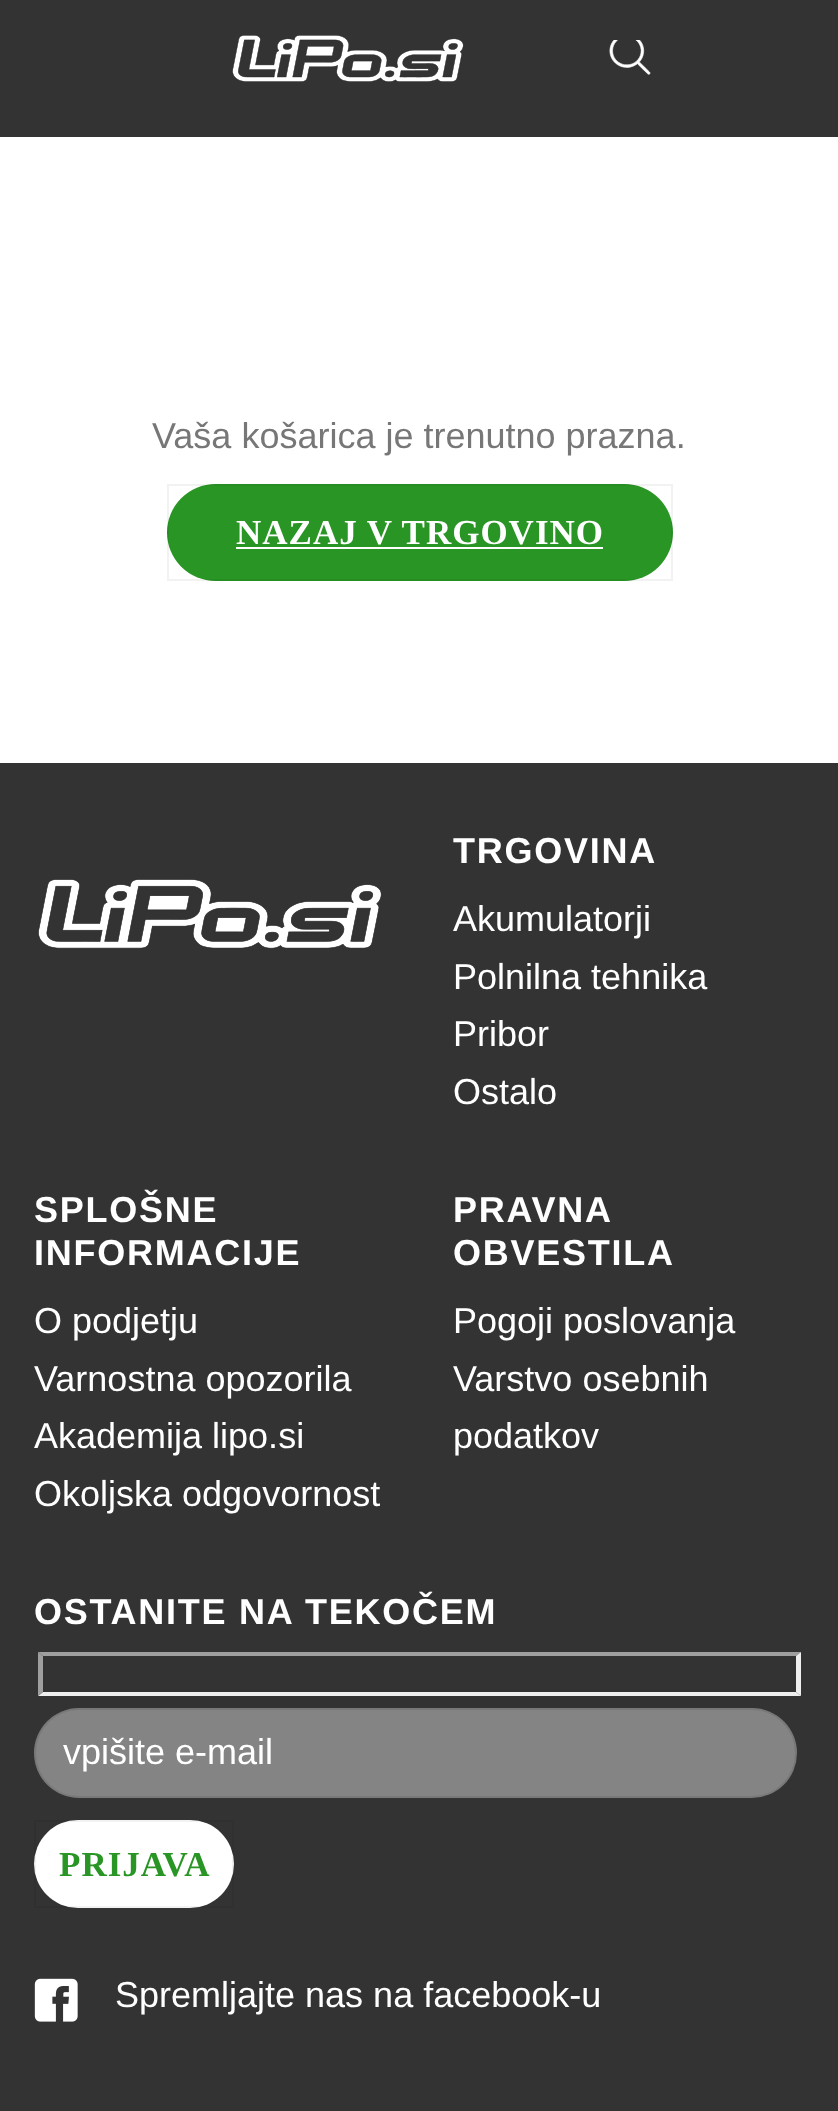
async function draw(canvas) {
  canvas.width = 838;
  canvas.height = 2111;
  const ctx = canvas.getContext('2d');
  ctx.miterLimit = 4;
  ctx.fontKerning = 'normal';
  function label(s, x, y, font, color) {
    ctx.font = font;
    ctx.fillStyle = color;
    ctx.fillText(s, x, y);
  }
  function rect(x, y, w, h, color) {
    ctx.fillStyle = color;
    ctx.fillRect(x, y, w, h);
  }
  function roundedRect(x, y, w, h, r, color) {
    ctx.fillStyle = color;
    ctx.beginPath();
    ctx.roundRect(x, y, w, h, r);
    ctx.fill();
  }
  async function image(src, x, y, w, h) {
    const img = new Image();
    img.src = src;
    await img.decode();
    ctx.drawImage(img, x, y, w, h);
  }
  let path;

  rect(0, 0, 838, 2111, '#fff');
  rect(0, 0, 838, 137, '#333');
  await image('assets/img1.png', 232, 35, 232, 47);
  await image('assets/img2.png', 609, 40, 42, 35);
  label('Vaša košarica je trenutno prazna.', 152, 448, '36px Liberation Sans', '#777');
  roundedRect(167, 484, 506, 97, 48.5, '#299525');
  ctx.strokeStyle = '#0000000d';
  ctx.lineWidth = 2;
  ctx.strokeRect(168, 485, 504, 95);
  ctx.letterSpacing = '1px';
  label('NAZAJ V TRGOVINO', 236, 544, 'bold 35px Liberation Serif', '#fff');
  rect(236, 547, 367, 2, '#fff');
  rect(0, 763, 838, 1348, '#333');
  await image('assets/img3.png', 38, 879, 344, 70);
  ctx.letterSpacing = '1.75px';
  label('TRGOVINA', 453, 863, 'bold 36px Liberation Sans', '#fff');
  ctx.letterSpacing = '0px';
  label('Akumulatorji', 453, 931, '36px Liberation Sans', '#fff');
  label('Polnilna tehnika', 453, 989, '36px Liberation Sans', '#fff');
  label('Pribor', 453, 1046, '36px Liberation Sans', '#fff');
  label('Ostalo', 453, 1104, '36px Liberation Sans', '#fff');
  ctx.letterSpacing = '1.75px';
  label('SPLOŠNE', 34, 1222, 'bold 36px Liberation Sans', '#fff');
  label('INFORMACIJE', 34, 1265, 'bold 36px Liberation Sans', '#fff');
  ctx.letterSpacing = '0px';
  label('O podjetju', 34, 1333, '36px Liberation Sans', '#fff');
  label('Varnostna opozorila', 34, 1391, '36px Liberation Sans', '#fff');
  label('Akademija lipo.si', 34, 1448, '36px Liberation Sans', '#fff');
  label('Okoljska odgovornost', 34, 1506, '36px Liberation Sans', '#fff');
  ctx.letterSpacing = '1.75px';
  label('PRAVNA', 453, 1222, 'bold 36px Liberation Sans', '#fff');
  label('OBVESTILA', 453, 1265, 'bold 36px Liberation Sans', '#fff');
  ctx.letterSpacing = '0px';
  label('Pogoji poslovanja', 453, 1333, '36px Liberation Sans', '#fff');
  label('Varstvo osebnih', 453, 1391, '36px Liberation Sans', '#fff');
  label('podatkov', 453, 1448, '36px Liberation Sans', '#fff');
  ctx.letterSpacing = '1.75px';
  label('OSTANITE NA TEKOČEM', 34, 1624, 'bold 36px Liberation Sans', '#fff');
  ctx.fillStyle = '#9f9f9f';
  path = new Path2D('M38 1652H801L796 1656H43Z');
  ctx.fill(path);
  ctx.fillStyle = '#efefef';
  path = new Path2D('M801 1652V1696L796 1692V1656Z');
  ctx.fill(path);
  path = new Path2D('M801 1696H38L43 1692H796Z');
  ctx.fill(path);
  ctx.fillStyle = '#9f9f9f';
  path = new Path2D('M38 1696V1652L43 1656V1692Z');
  ctx.fill(path);
  roundedRect(34, 1708, 763, 90, 45, '#ffffff66');
  ctx.beginPath();
  ctx.roundRect(35, 1709, 761, 88, 44);
  ctx.strokeStyle = '#00000017';
  ctx.stroke();
  ctx.letterSpacing = '0px';
  label('vpišite e-mail', 63, 1764, '36px Liberation Sans', '#fff');
  roundedRect(34, 1820, 200, 88, 44, '#fff');
  ctx.strokeStyle = '#0000000d';
  ctx.strokeRect(35, 1821, 198, 86);
  ctx.letterSpacing = '1px';
  label('PRIJAVA', 59, 1876, 'bold 35px Liberation Serif', '#299525');
  await image('assets/img4.png', 34, 1978, 44, 44);
  ctx.letterSpacing = '0px';
  label('Spremljajte nas na facebook-u', 115, 2007, '36px Liberation Sans', '#fff');
}

draw(document.querySelector('canvas'));
